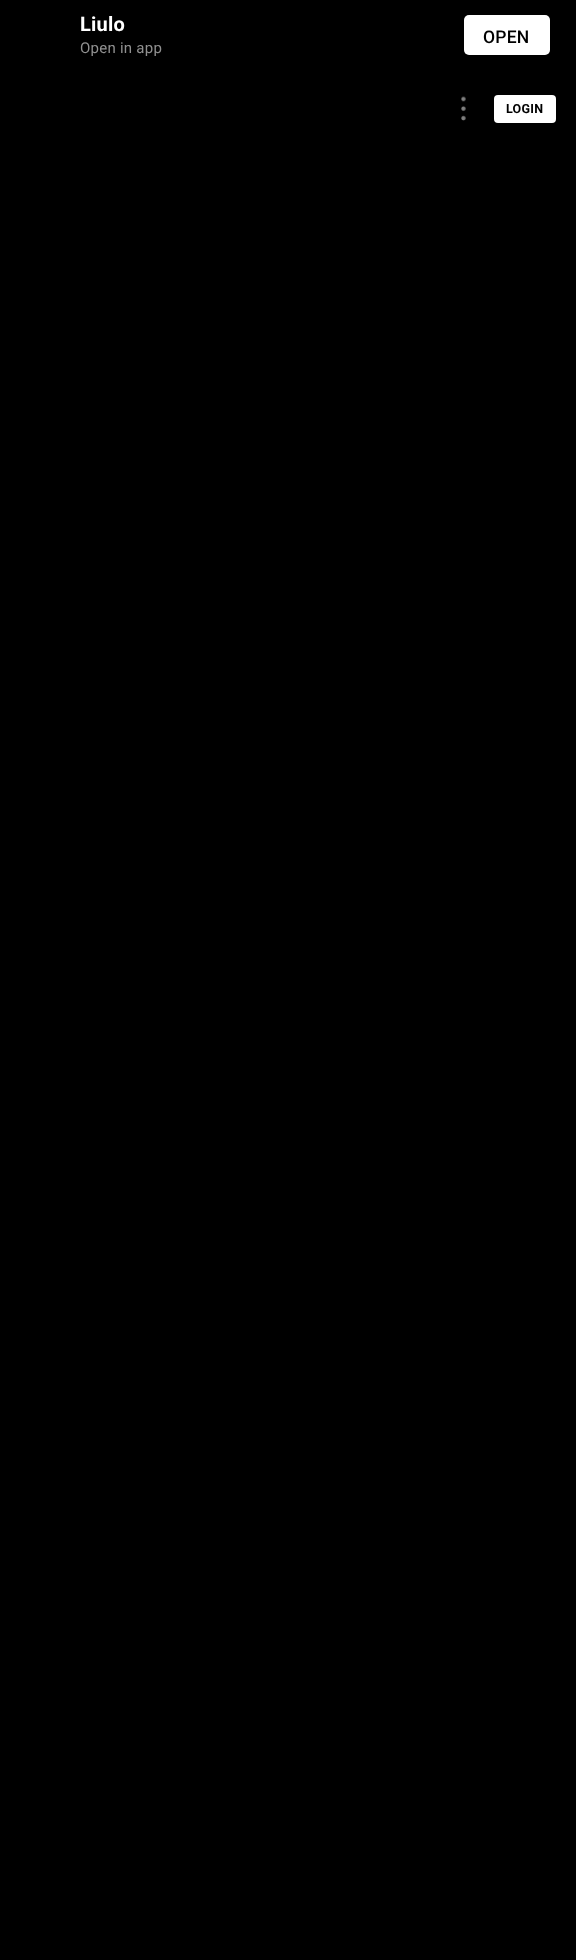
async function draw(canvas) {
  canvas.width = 576;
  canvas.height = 1960;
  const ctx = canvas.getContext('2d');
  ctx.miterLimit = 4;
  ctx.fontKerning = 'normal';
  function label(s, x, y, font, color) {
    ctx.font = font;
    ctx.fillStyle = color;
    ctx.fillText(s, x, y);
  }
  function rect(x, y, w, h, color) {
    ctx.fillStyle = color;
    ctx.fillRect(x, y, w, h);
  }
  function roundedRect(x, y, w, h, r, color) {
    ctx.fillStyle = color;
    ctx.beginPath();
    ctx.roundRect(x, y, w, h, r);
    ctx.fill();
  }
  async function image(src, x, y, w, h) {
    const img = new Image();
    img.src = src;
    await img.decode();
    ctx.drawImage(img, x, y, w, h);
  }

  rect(0, 0, 576, 1960, '#000');
  ctx.letterSpacing = '0.25px';
  label('Liulo', 80, 31, 'bold 20px Roboto', '#fff');
  label('Open in app', 80, 53, '15px Roboto', '#909090');
  roundedRect(464, 15, 86, 40, 5, '#fff');
  label('OPEN', 483, 43, '500 17.5px Roboto', '#000');
  await image('assets/img1.png', 461, 96, 5, 25);
  roundedRect(494, 95, 62, 28, 4, '#fff');
  label('LOGIN', 506, 113, 'bold 12.5px Roboto', '#000');
}

draw(document.querySelector('canvas'));
